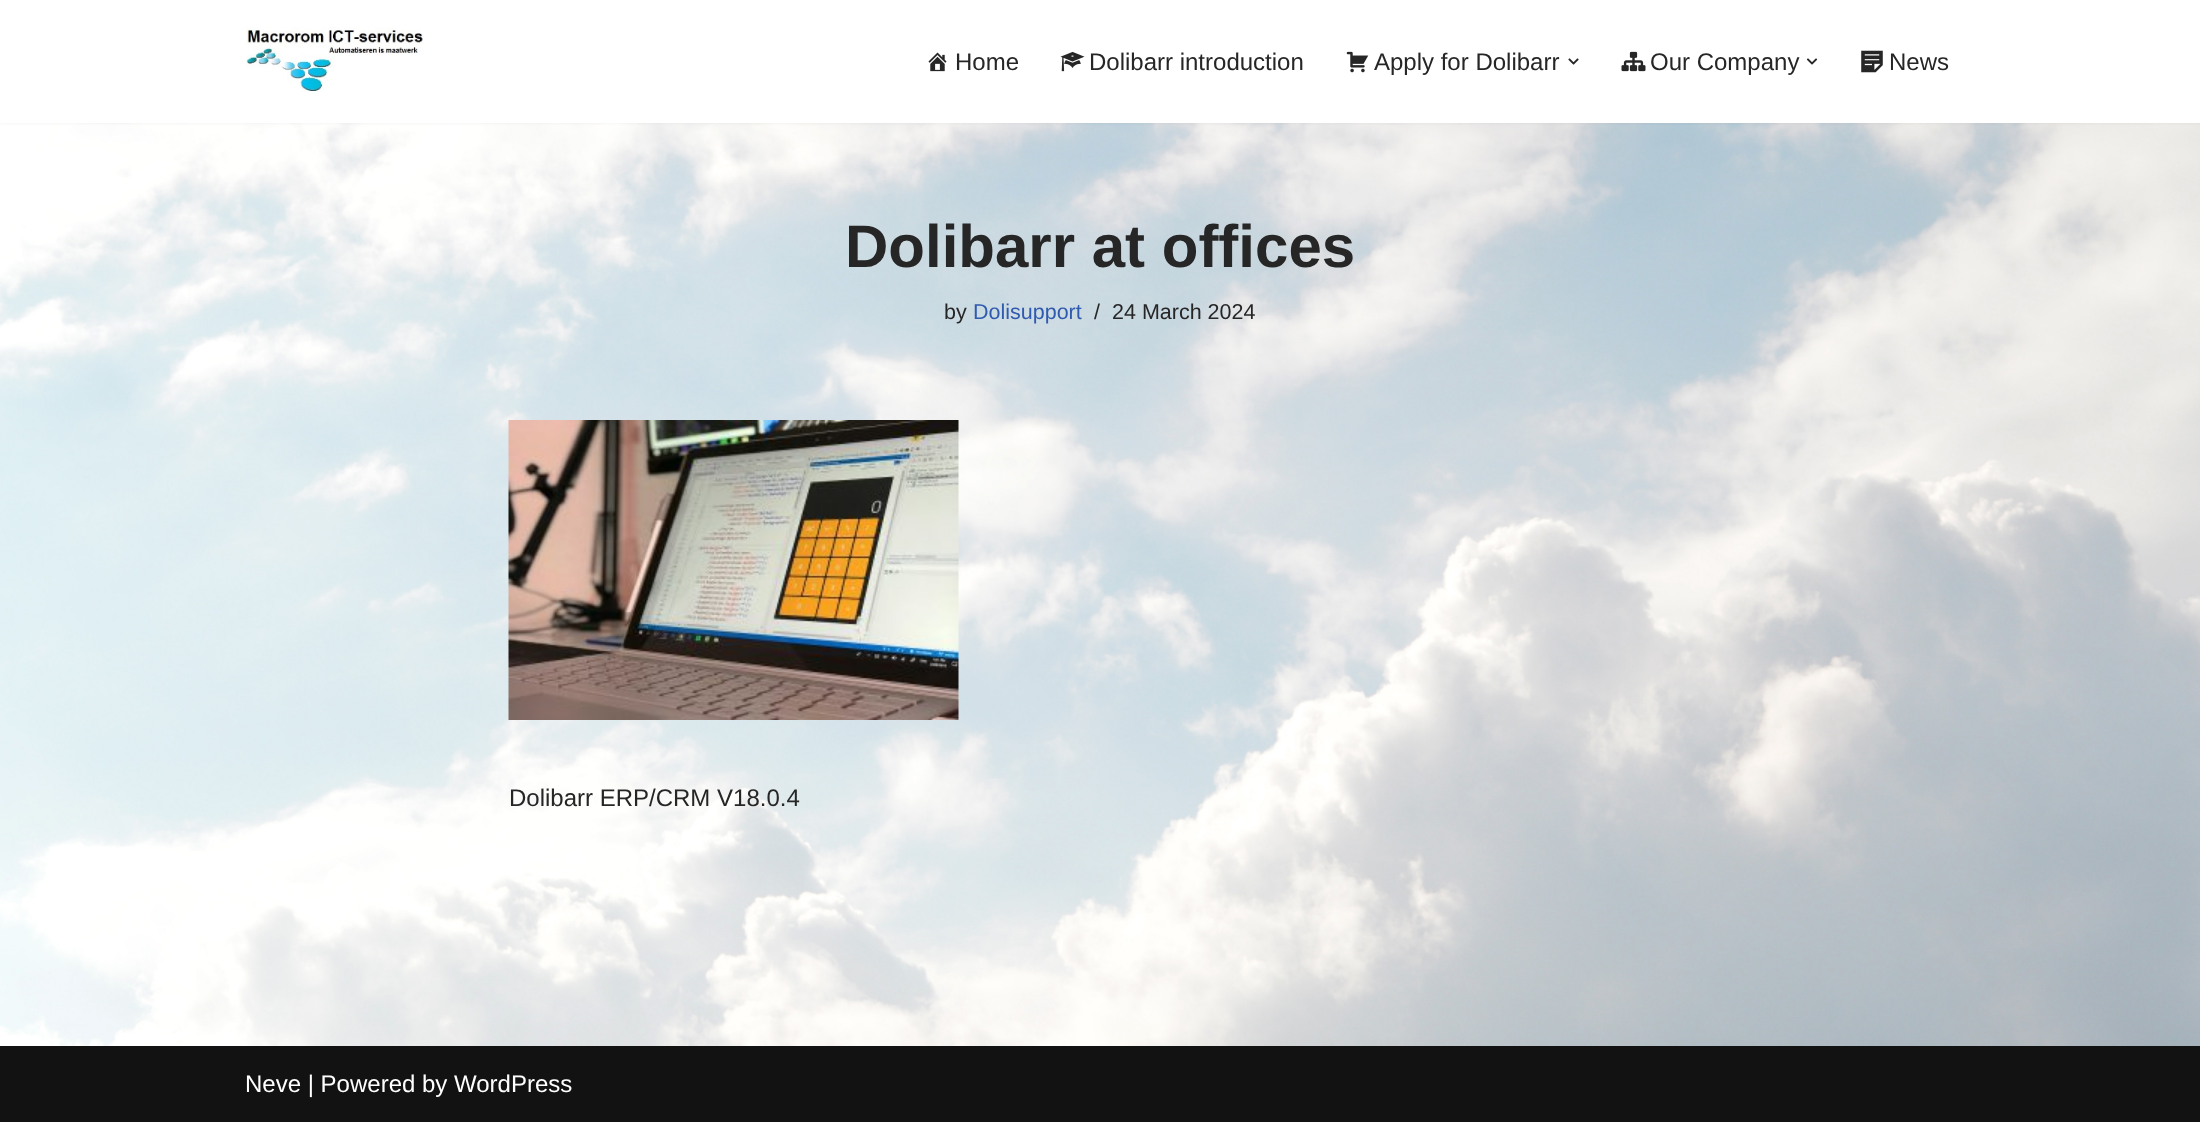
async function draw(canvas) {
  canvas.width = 2200;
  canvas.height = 1122;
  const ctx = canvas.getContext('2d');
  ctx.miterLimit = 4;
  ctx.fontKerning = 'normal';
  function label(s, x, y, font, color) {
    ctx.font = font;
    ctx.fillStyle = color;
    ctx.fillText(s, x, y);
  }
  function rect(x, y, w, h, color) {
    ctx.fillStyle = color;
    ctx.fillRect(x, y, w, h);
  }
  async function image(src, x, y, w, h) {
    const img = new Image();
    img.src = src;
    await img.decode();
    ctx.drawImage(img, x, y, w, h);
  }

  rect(0, 0, 2200, 1122, '#fff');
  await image('assets/img1.png', 0, 123, 2200, 923);
  ctx.fillStyle = '#0000001a';
  ctx.filter = 'blur(2px)';
  ctx.beginPath();
  ctx.rect(0, -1, 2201, 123);
  ctx.fill();
  ctx.filter = 'none';
  rect(0, 0, 2200, 123, '#fff');
  await image('assets/img2.png', 246, 27, 178, 65);
  await image('assets/img3.png', 928, 52, 19, 20);
  label('Home', 955, 70, '24px Liberation Sans', '#272626');
  await image('assets/img4.png', 1060, 51, 25, 21);
  label('Dolibarr introduction', 1089, 70, '24px Liberation Sans', '#272626');
  await image('assets/img5.png', 1346, 51, 23, 22);
  label('Apply for Dolibarr', 1374, 70, '24px Liberation Sans', '#272626');
  await image('assets/img6.png', 1568, 58, 11, 7);
  await image('assets/img7.png', 1621, 51, 25, 21);
  label('Our Company', 1650, 70, '24px Liberation Sans', '#272626');
  await image('assets/img8.png', 1806, 58, 12, 7);
  await image('assets/img9.png', 1861, 50, 22, 23);
  label('News', 1889, 70, '24px Liberation Sans', '#272626');
  label('Dolibarr at offices', 845, 267, 'bold 60px Liberation Sans', '#272626');
  label('by', 944, 319, '21.5px Liberation Sans', '#272626');
  label('Dolisupport', 973, 319, '21.5px Liberation Sans', '#2f5aae');
  label('/', 1094, 319, '21.5px Liberation Sans', '#272626');
  label('24 March 2024', 1112, 319, '21.5px Liberation Sans', '#272626');
  await image('assets/img10.png', 508, 420, 451, 300);
  label('Dolibarr ERP/CRM V18.0.4', 509, 806, '24px Liberation Sans', '#272626');
  rect(0, 1046, 2200, 76, '#121212');
  label('Neve | Powered by WordPress', 245, 1092, '24px Liberation Sans', '#fff');
}

draw(document.querySelector('canvas'));
